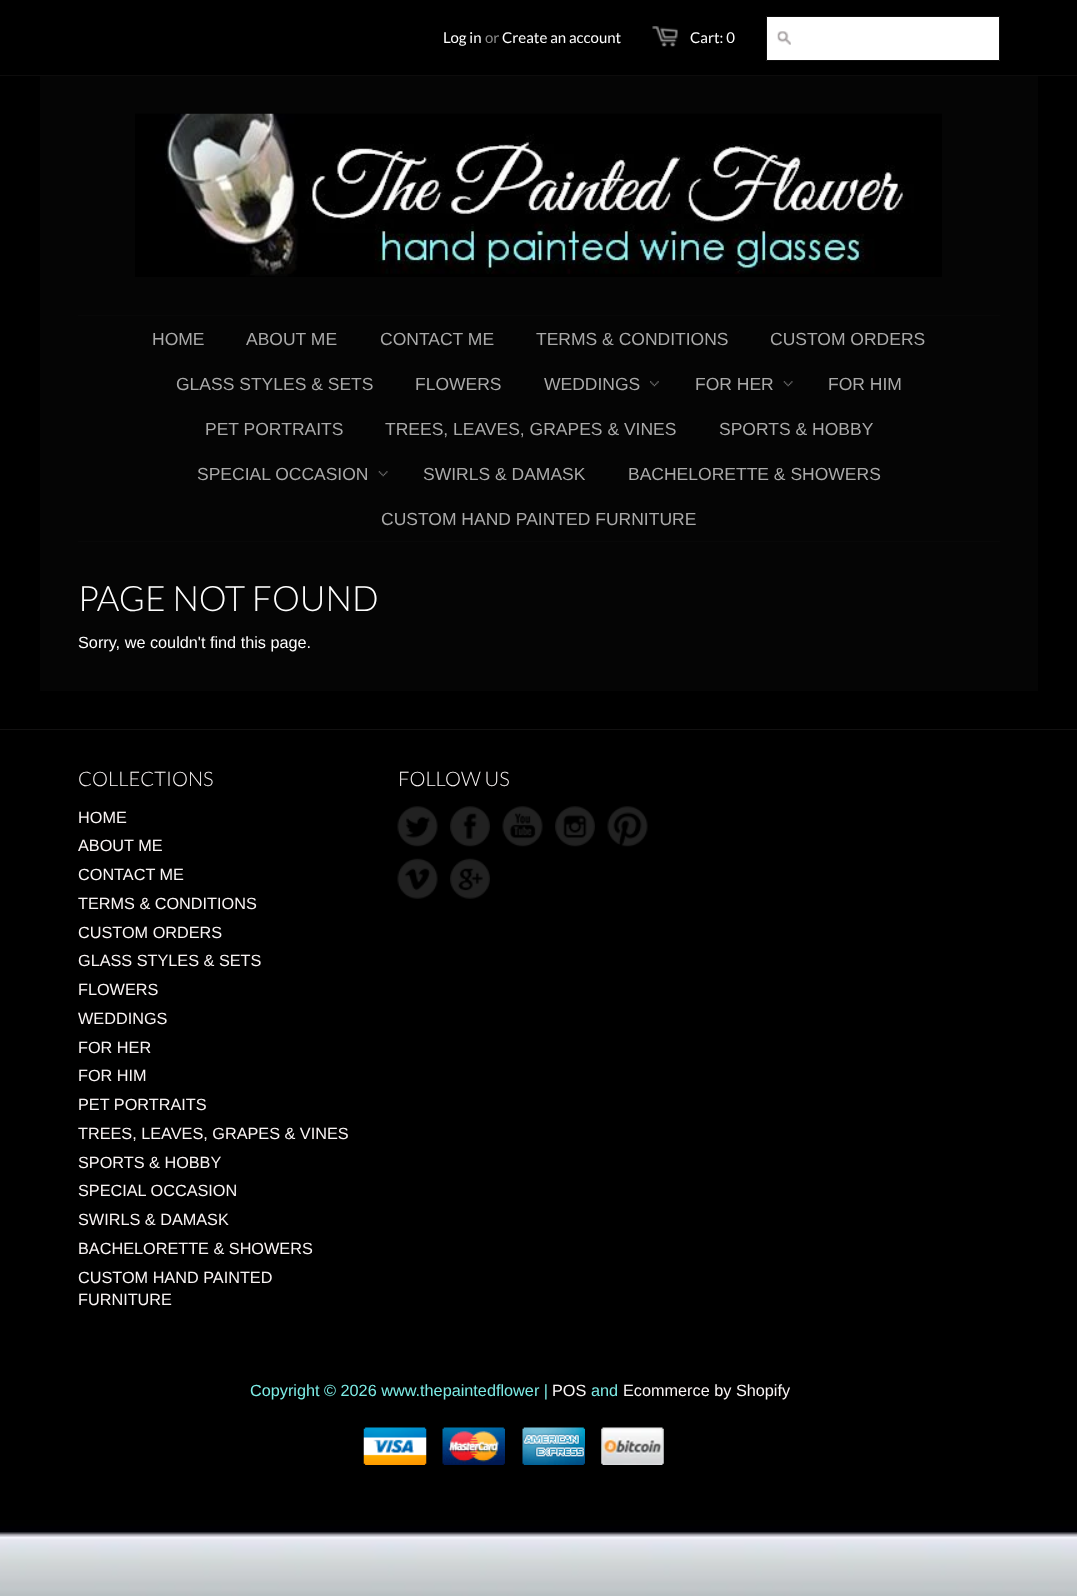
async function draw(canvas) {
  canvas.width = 1077;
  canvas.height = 1596;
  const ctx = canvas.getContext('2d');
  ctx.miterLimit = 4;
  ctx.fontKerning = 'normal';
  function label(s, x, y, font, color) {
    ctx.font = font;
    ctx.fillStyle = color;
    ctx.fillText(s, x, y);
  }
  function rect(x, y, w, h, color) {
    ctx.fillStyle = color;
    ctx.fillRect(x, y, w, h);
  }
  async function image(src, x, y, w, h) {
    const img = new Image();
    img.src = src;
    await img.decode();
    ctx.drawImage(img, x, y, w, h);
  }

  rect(0, 0, 1077, 1596, '#fff');
  await image('assets/img1.png', 0, 0, 1077, 1596);
  rect(0, 75, 1077, 1, '#0d0c0c');
  label('Log in', 443, 43, '15px Lato', '#fff');
  label('or', 485, 43, '15px Lato', '#888');
  label('Create an account', 502, 43, '15px Lato', '#fff');
  await image('assets/img2.png', 652, 26, 26, 21);
  label('Cart: 0', 690, 43, '15px Lato', '#fff');
  ctx.beginPath();
  ctx.roundRect(766.5, 16.5, 233, 44, 0.5);
  ctx.fill();
  ctx.strokeStyle = '#0f0e0e';
  ctx.stroke();
  await image('assets/img3.png', 777, 31, 14, 14);
  rect(40, 76, 998, 615, '#050505');
  await image('assets/img4.png', 135, 113, 807, 164);
  rect(78, 315, 922, 1, '#080808');
  rect(78, 541, 922, 1, '#080808');
  label('HOME', 152, 345, '17.5px Liberation Sans', '#aaa');
  label('ABOUT ME', 246, 345, '17.5px Liberation Sans', '#aaa');
  label('CONTACT ME', 380, 345, '17.5px Liberation Sans', '#aaa');
  label('TERMS & CONDITIONS', 536, 345, '17.5px Liberation Sans', '#aaa');
  label('CUSTOM ORDERS', 770, 345, '17.5px Liberation Sans', '#aaa');
  label('GLASS STYLES & SETS', 176, 390, '17.5px Liberation Sans', '#aaa');
  label('FLOWERS', 415, 390, '17.5px Liberation Sans', '#aaa');
  await image('assets/img5.png', 650, 381, 9, 6);
  label('WEDDINGS', 544, 390, '17.5px Liberation Sans', '#aaa');
  await image('assets/img6.png', 783, 381, 10, 6);
  label('FOR HER', 695, 390, '17.5px Liberation Sans', '#aaa');
  label('FOR HIM', 828, 390, '17.5px Liberation Sans', '#aaa');
  label('PET PORTRAITS', 205, 435, '17.5px Liberation Sans', '#aaa');
  label('TREES, LEAVES, GRAPES & VINES', 385, 435, '17.5px Liberation Sans', '#aaa');
  label('SPORTS & HOBBY', 719, 435, '17.5px Liberation Sans', '#aaa');
  await image('assets/img7.png', 378, 471, 10, 6);
  label('SPECIAL OCCASION', 197, 480, '17.5px Liberation Sans', '#aaa');
  label('SWIRLS & DAMASK', 423, 480, '17.5px Liberation Sans', '#aaa');
  label('BACHELORETTE & SHOWERS', 628, 480, '17.5px Liberation Sans', '#aaa');
  label('CUSTOM HAND PAINTED FURNITURE', 381, 525, '17.5px Liberation Sans', '#aaa');
  label('PAGE NOT FOUND', 78, 611, '300 35px Lato', '#fff');
  label('Sorry, we couldn\'t find this page.', 78, 648, '16.25px Liberation Sans', '#fff');
  rect(0, 729, 1077, 1, '#121111');
  label('COLLECTIONS', 78, 786, '300 20px Lato', '#faf5f5');
  label('HOME', 78, 823, '16.25px Liberation Sans', '#faf5f5');
  label('ABOUT ME', 78, 851, '16.25px Liberation Sans', '#faf5f5');
  label('CONTACT ME', 78, 880, '16.25px Liberation Sans', '#faf5f5');
  label('TERMS & CONDITIONS', 78, 909, '16.25px Liberation Sans', '#faf5f5');
  label('CUSTOM ORDERS', 78, 938, '16.25px Liberation Sans', '#faf5f5');
  label('GLASS STYLES & SETS', 78, 966, '16.25px Liberation Sans', '#faf5f5');
  label('FLOWERS', 78, 995, '16.25px Liberation Sans', '#faf5f5');
  label('WEDDINGS', 78, 1024, '16.25px Liberation Sans', '#faf5f5');
  label('FOR HER', 78, 1053, '16.25px Liberation Sans', '#faf5f5');
  label('FOR HIM', 78, 1081, '16.25px Liberation Sans', '#faf5f5');
  label('PET PORTRAITS', 78, 1110, '16.25px Liberation Sans', '#faf5f5');
  label('TREES, LEAVES, GRAPES & VINES', 78, 1139, '16.25px Liberation Sans', '#faf5f5');
  label('SPORTS & HOBBY', 78, 1168, '16.25px Liberation Sans', '#faf5f5');
  label('SPECIAL OCCASION', 78, 1196, '16.25px Liberation Sans', '#faf5f5');
  label('SWIRLS & DAMASK', 78, 1225, '16.25px Liberation Sans', '#faf5f5');
  label('BACHELORETTE & SHOWERS', 78, 1254, '16.25px Liberation Sans', '#faf5f5');
  label('CUSTOM HAND PAINTED', 78, 1283, '16.25px Liberation Sans', '#faf5f5');
  label('FURNITURE', 78, 1305, '16.25px Liberation Sans', '#faf5f5');
  label('FOLLOW US', 398, 786, '300 20px Lato', '#faf5f5');
  await image('assets/img8.png', 397, 806, 41, 41);
  await image('assets/img9.png', 450, 806, 40, 41);
  await image('assets/img10.png', 502, 806, 41, 41);
  await image('assets/img11.png', 555, 806, 40, 41);
  await image('assets/img12.png', 607, 806, 41, 41);
  await image('assets/img13.png', 397, 858, 41, 41);
  await image('assets/img14.png', 450, 858, 40, 41);
  label('Copyright © 2026 www.thepaintedflower |', 250, 1396, '16.25px Liberation Sans', '#7cebe5');
  label('POS', 552, 1396, '16.25px Liberation Sans', '#faf5f5');
  label('and', 591, 1396, '16.25px Liberation Sans', '#7cebe5');
  label('Ecommerce by Shopify', 623, 1396, '16.25px Liberation Sans', '#faf5f5');
  await image('assets/img15.png', 363, 1427, 64, 38);
  await image('assets/img16.png', 442, 1427, 63, 38);
  await image('assets/img17.png', 522, 1427, 63, 38);
  await image('assets/img18.png', 601, 1427, 63, 38);
}

draw(document.querySelector('canvas'));
